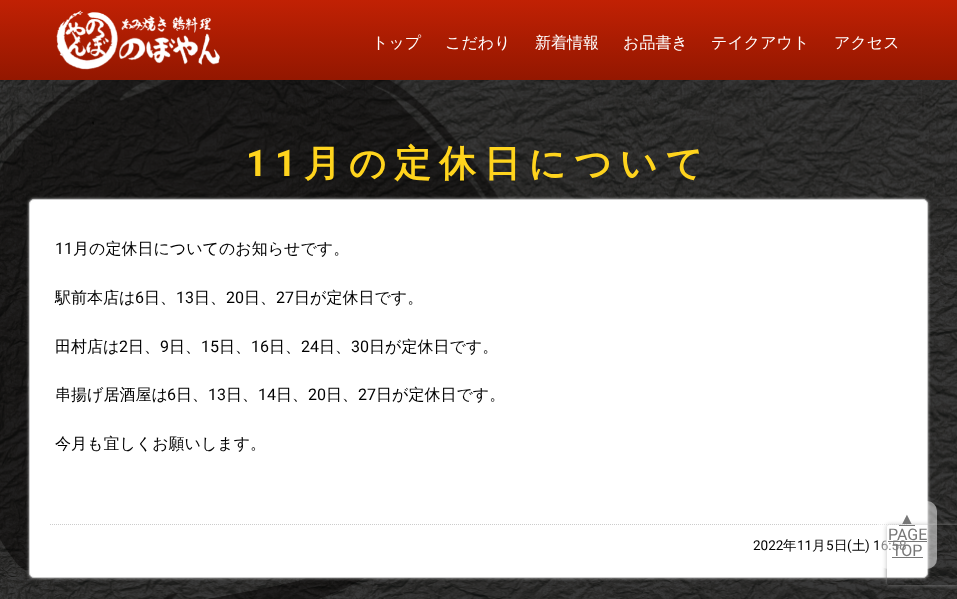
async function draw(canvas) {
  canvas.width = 957;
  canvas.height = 599;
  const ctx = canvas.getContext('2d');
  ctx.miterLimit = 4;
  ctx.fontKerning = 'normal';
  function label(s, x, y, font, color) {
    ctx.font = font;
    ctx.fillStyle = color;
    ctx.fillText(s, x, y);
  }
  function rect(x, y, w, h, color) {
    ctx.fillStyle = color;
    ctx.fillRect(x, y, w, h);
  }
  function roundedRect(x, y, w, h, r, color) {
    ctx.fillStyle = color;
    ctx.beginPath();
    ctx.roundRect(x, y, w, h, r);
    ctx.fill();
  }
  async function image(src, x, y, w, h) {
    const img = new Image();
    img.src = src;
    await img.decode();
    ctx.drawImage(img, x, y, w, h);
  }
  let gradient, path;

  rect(0, 0, 957, 599, '#fff');
  await image('assets/img1.png', 0, 80, 957, 519);
  gradient = ctx.createLinearGradient(479, 0, 479, 80);
  gradient.addColorStop(0, '#c12104');
  gradient.addColorStop(1, '#931700');
  ctx.fillStyle = gradient;
  ctx.fillRect(0, 0, 957, 80);
  await image('assets/img2.png', 56, 10, 164, 60);
  label('トップ', 372, 48, '500 16px WenQuanYi Zen Hei', '#fff');
  label('こだわり', 445, 48, '500 16px WenQuanYi Zen Hei', '#fff');
  label('新着情報', 535, 48, '500 16px WenQuanYi Zen Hei', '#fff');
  label('お品書き', 623, 48, '500 16px WenQuanYi Zen Hei', '#fff');
  label('テイクアウト', 711, 48, '500 16px WenQuanYi Zen Hei', '#fff');
  label('アクセス', 834, 48, '500 16px WenQuanYi Zen Hei', '#fff');
  ctx.letterSpacing = '8px';
  label('11', 246, 176, 'bold 36.75px Roboto', '#ffd41d');
  label('月の定休日について', 304, 176, 'bold 36.75px WenQuanYi Zen Hei', '#ffd41d');
  ctx.fillStyle = '#ccc';
  ctx.filter = 'blur(1.5px)';
  ctx.beginPath();
  ctx.roundRect(29, 199, 899, 379, 5);
  ctx.fill();
  ctx.filter = 'none';
  ctx.fillStyle = '#fff';
  ctx.beginPath();
  ctx.roundRect(29.5, 199.5, 898, 378, 4.5);
  ctx.fill();
  ctx.strokeStyle = '#ccc';
  ctx.stroke();
  path = new Path2D('M50 524.5H907');
  ctx.setLineDash([1, 1]);
  ctx.stroke(path);
  ctx.letterSpacing = '0px';
  label('11', 55, 254, '16px Roboto', '#000');
  label('月の定休日についてのお知らせです。', 73, 254, '500 16px WenQuanYi Zen Hei', '#000');
  label('駅前本店は', 55, 303, '500 16px WenQuanYi Zen Hei', '#000');
  label('6', 135, 303, '16px Roboto', '#000');
  label('日、', 144, 303, '500 16px WenQuanYi Zen Hei', '#000');
  label('13', 176, 303, '16px Roboto', '#000');
  label('日、', 194, 303, '500 16px WenQuanYi Zen Hei', '#000');
  label('20', 226, 303, '16px Roboto', '#000');
  label('日、', 244, 303, '500 16px WenQuanYi Zen Hei', '#000');
  label('27', 276, 303, '16px Roboto', '#000');
  label('日が定休日です。', 294, 303, '500 16px WenQuanYi Zen Hei', '#000');
  label('田村店は', 55, 352, '500 16px WenQuanYi Zen Hei', '#000');
  label('2', 119, 352, '16px Roboto', '#000');
  label('日、', 128, 352, '500 16px WenQuanYi Zen Hei', '#000');
  label('9', 160, 352, '16px Roboto', '#000');
  label('日、', 169, 352, '500 16px WenQuanYi Zen Hei', '#000');
  label('15', 201, 352, '16px Roboto', '#000');
  label('日、', 219, 352, '500 16px WenQuanYi Zen Hei', '#000');
  label('16', 251, 352, '16px Roboto', '#000');
  label('日、', 269, 352, '500 16px WenQuanYi Zen Hei', '#000');
  label('24', 301, 352, '16px Roboto', '#000');
  label('日、', 319, 352, '500 16px WenQuanYi Zen Hei', '#000');
  label('30', 351, 352, '16px Roboto', '#000');
  label('日が定休日です。', 369, 352, '500 16px WenQuanYi Zen Hei', '#000');
  label('串揚げ居酒屋は', 55, 400, '500 16px WenQuanYi Zen Hei', '#000');
  label('6', 167, 400, '16px Roboto', '#000');
  label('日、', 176, 400, '500 16px WenQuanYi Zen Hei', '#000');
  label('13', 208, 400, '16px Roboto', '#000');
  label('日、', 226, 400, '500 16px WenQuanYi Zen Hei', '#000');
  label('14', 258, 400, '16px Roboto', '#000');
  label('日、', 276, 400, '500 16px WenQuanYi Zen Hei', '#000');
  label('20', 308, 400, '16px Roboto', '#000');
  label('日、', 326, 400, '500 16px WenQuanYi Zen Hei', '#000');
  label('27', 358, 400, '16px Roboto', '#000');
  label('日が定休日です。', 376, 400, '500 16px WenQuanYi Zen Hei', '#000');
  label('今月も宜しくお願いします。', 55, 449, '500 16px WenQuanYi Zen Hei', '#000');
  label('2022', 753, 550, '13.5px Roboto', '#000');
  label('年', 783, 550, '500 13.5px WenQuanYi Zen Hei', '#000');
  label('11', 797, 550, '13.5px Roboto', '#000');
  label('月', 812, 550, '500 13.5px WenQuanYi Zen Hei', '#000');
  label('5', 826, 550, '13.5px Roboto', '#000');
  label('日', 834, 550, '500 13.5px WenQuanYi Zen Hei', '#000');
  label('(', 847, 550, '13.5px Roboto', '#000');
  label('土', 852, 550, '500 13.5px WenQuanYi Zen Hei', '#000');
  label(') 16:58', 865, 550, '13.5px Roboto', '#000');
  ctx.save();
  path = new Path2D('M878 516H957V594H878ZM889 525H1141C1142 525 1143 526 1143 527V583C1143 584 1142 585 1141 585H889C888 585 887 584 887 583V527C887 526 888 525 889 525Z');
  ctx.clip(path, 'evenodd');
  ctx.fillStyle = '#808080';
  ctx.filter = 'blur(2.5px)';
  ctx.beginPath();
  ctx.roundRect(887, 525, 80, 60, 2);
  ctx.fill();
  ctx.filter = 'none';
  ctx.restore();
  roundedRect(878, 501, 59, 68, 10, '#ffffff80');
  label('▲', 899, 524, '16px Liberation Sans', '#777');
  rect(899, 525, 16, 1, '#777');
  label('PAGE', 888, 540, '16px Roboto', '#777');
  rect(888, 541, 39, 1, '#777');
  label('TOP', 892, 556, '16px Roboto', '#777');
  rect(892, 557, 31, 1, '#777');
}

draw(document.querySelector('canvas'));
